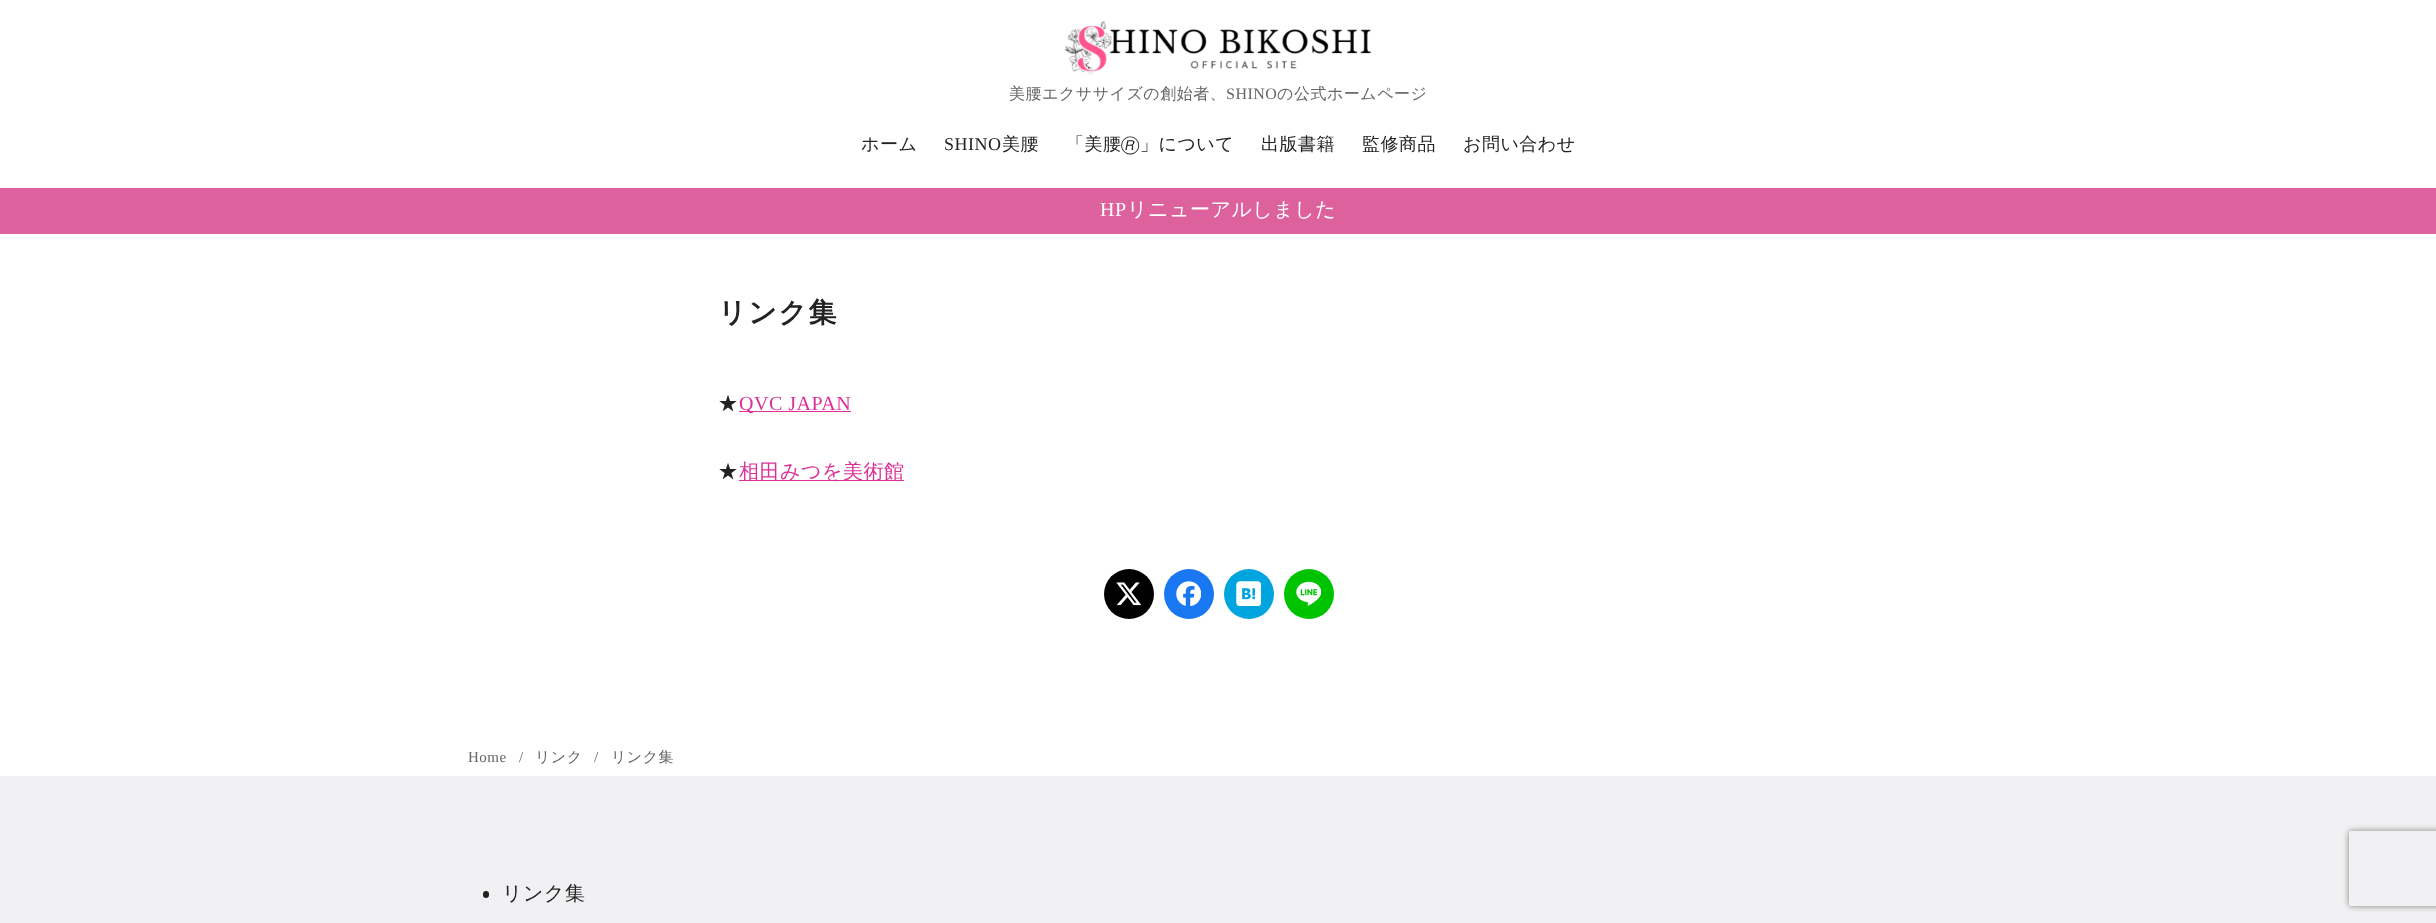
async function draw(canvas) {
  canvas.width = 2436;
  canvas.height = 923;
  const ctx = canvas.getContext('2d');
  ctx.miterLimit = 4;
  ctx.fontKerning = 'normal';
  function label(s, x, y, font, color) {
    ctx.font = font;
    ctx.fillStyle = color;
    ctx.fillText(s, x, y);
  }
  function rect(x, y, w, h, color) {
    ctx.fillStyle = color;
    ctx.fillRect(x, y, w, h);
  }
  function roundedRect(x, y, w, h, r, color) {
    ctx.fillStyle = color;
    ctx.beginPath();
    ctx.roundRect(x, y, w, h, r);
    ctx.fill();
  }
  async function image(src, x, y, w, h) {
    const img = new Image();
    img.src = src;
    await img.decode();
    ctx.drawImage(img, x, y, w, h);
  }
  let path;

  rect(0, 0, 2436, 923, '#fff');
  await image('assets/img1.png', 1064, 20, 307, 55);
  ctx.letterSpacing = '0.5px';
  label('美腰エクササイズの創始者、', 1009, 99, '500 16px WenQuanYi Zen Hei', '#656565');
  label('SHINO', 1226, 99, '16px Liberation Serif', '#656565');
  label('の公式ホームページ', 1277, 99, '500 16px WenQuanYi Zen Hei', '#656565');
  label('ホーム', 861, 150, '500 18px WenQuanYi Zen Hei', '#222');
  label('SHINO', 944, 150, '18px Liberation Serif', '#222');
  label('美腰', 1002, 150, '500 18px WenQuanYi Zen Hei', '#222');
  label('「美腰', 1066, 150, '500 18px WenQuanYi Zen Hei', '#222');
  label('🄬', 1121, 150, '18px FreeSans', '#222');
  label('」について', 1140, 150, '500 18px WenQuanYi Zen Hei', '#222');
  label('出版書籍', 1261, 150, '500 18px WenQuanYi Zen Hei', '#222');
  label('監修商品', 1362, 150, '500 18px WenQuanYi Zen Hei', '#222');
  label('お問い合わせ', 1463, 150, '500 18px WenQuanYi Zen Hei', '#222');
  rect(0, 188, 2436, 46, '#dd619d');
  label('HP', 1100, 216, '20px Liberation Serif', '#fff');
  label('リニューアルしました', 1127, 216, '500 20px WenQuanYi Zen Hei', '#fff');
  ctx.letterSpacing = '1.5px';
  label('リンク集', 718, 322, 'bold 28px WenQuanYi Zen Hei', '#222');
  ctx.letterSpacing = '0.5px';
  label('★', 718, 410, '500 20px WenQuanYi Zen Hei', '#222');
  rect(739, 411, 112, 1, '#db3099');
  label('QVC JAPAN', 739, 410, '20px Liberation Serif', '#db3099');
  label('★', 718, 478, '500 20px WenQuanYi Zen Hei', '#222');
  rect(739, 480, 165, 1, '#db3099');
  label('相田みつを美術館', 739, 478, '500 20px WenQuanYi Zen Hei', '#db3099');
  ctx.fillStyle = '#000';
  ctx.beginPath();
  ctx.arc(1129, 594, 25, 0, 2 * Math.PI);
  ctx.fill();
  await image('assets/img2.png', 1116, 582, 25, 24);
  ctx.fillStyle = '#1977f2';
  ctx.beginPath();
  ctx.arc(1189, 594, 25, 0, 2 * Math.PI);
  ctx.fill();
  await image('assets/img3.png', 1176, 581, 25, 25);
  ctx.fillStyle = '#00a4de';
  ctx.beginPath();
  ctx.arc(1249, 594, 25, 0, 2 * Math.PI);
  ctx.fill();
  await image('assets/img4.png', 1236, 581, 25, 25);
  ctx.fillStyle = '#00c300';
  ctx.beginPath();
  ctx.arc(1309, 594, 25, 0, 2 * Math.PI);
  ctx.fill();
  await image('assets/img5.png', 1296, 581, 25, 25);
  label('Home', 468, 762, '15px Liberation Serif', '#656565');
  label('/', 519, 762, '15px Liberation Serif', '#656565');
  label('リンク', 535, 762, '500 15px WenQuanYi Zen Hei', '#656565');
  label('/', 594, 762, '15px Liberation Serif', '#656565');
  label('リンク集', 611, 762, '500 15px WenQuanYi Zen Hei', '#656565');
  rect(0, 776, 2436, 147, '#f1f1f3');
  roundedRect(483, 891, 6, 7, 3, '#222');
  label('リンク集', 502, 900, '500 20px WenQuanYi Zen Hei', '#222');
  ctx.save();
  path = new Path2D('M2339 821H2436V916H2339ZM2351.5 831H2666.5C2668 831 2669 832 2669 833.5V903.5C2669 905 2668 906 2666.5 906H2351.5C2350 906 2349 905 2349 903.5V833.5C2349 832 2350 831 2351.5 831Z');
  ctx.clip(path, 'evenodd');
  ctx.fillStyle = '#808080';
  ctx.filter = 'blur(3px)';
  ctx.beginPath();
  ctx.roundRect(2349, 831, 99, 75, 2.5);
  ctx.fill();
  ctx.filter = 'none';
  ctx.restore();
}

draw(document.querySelector('canvas'));
